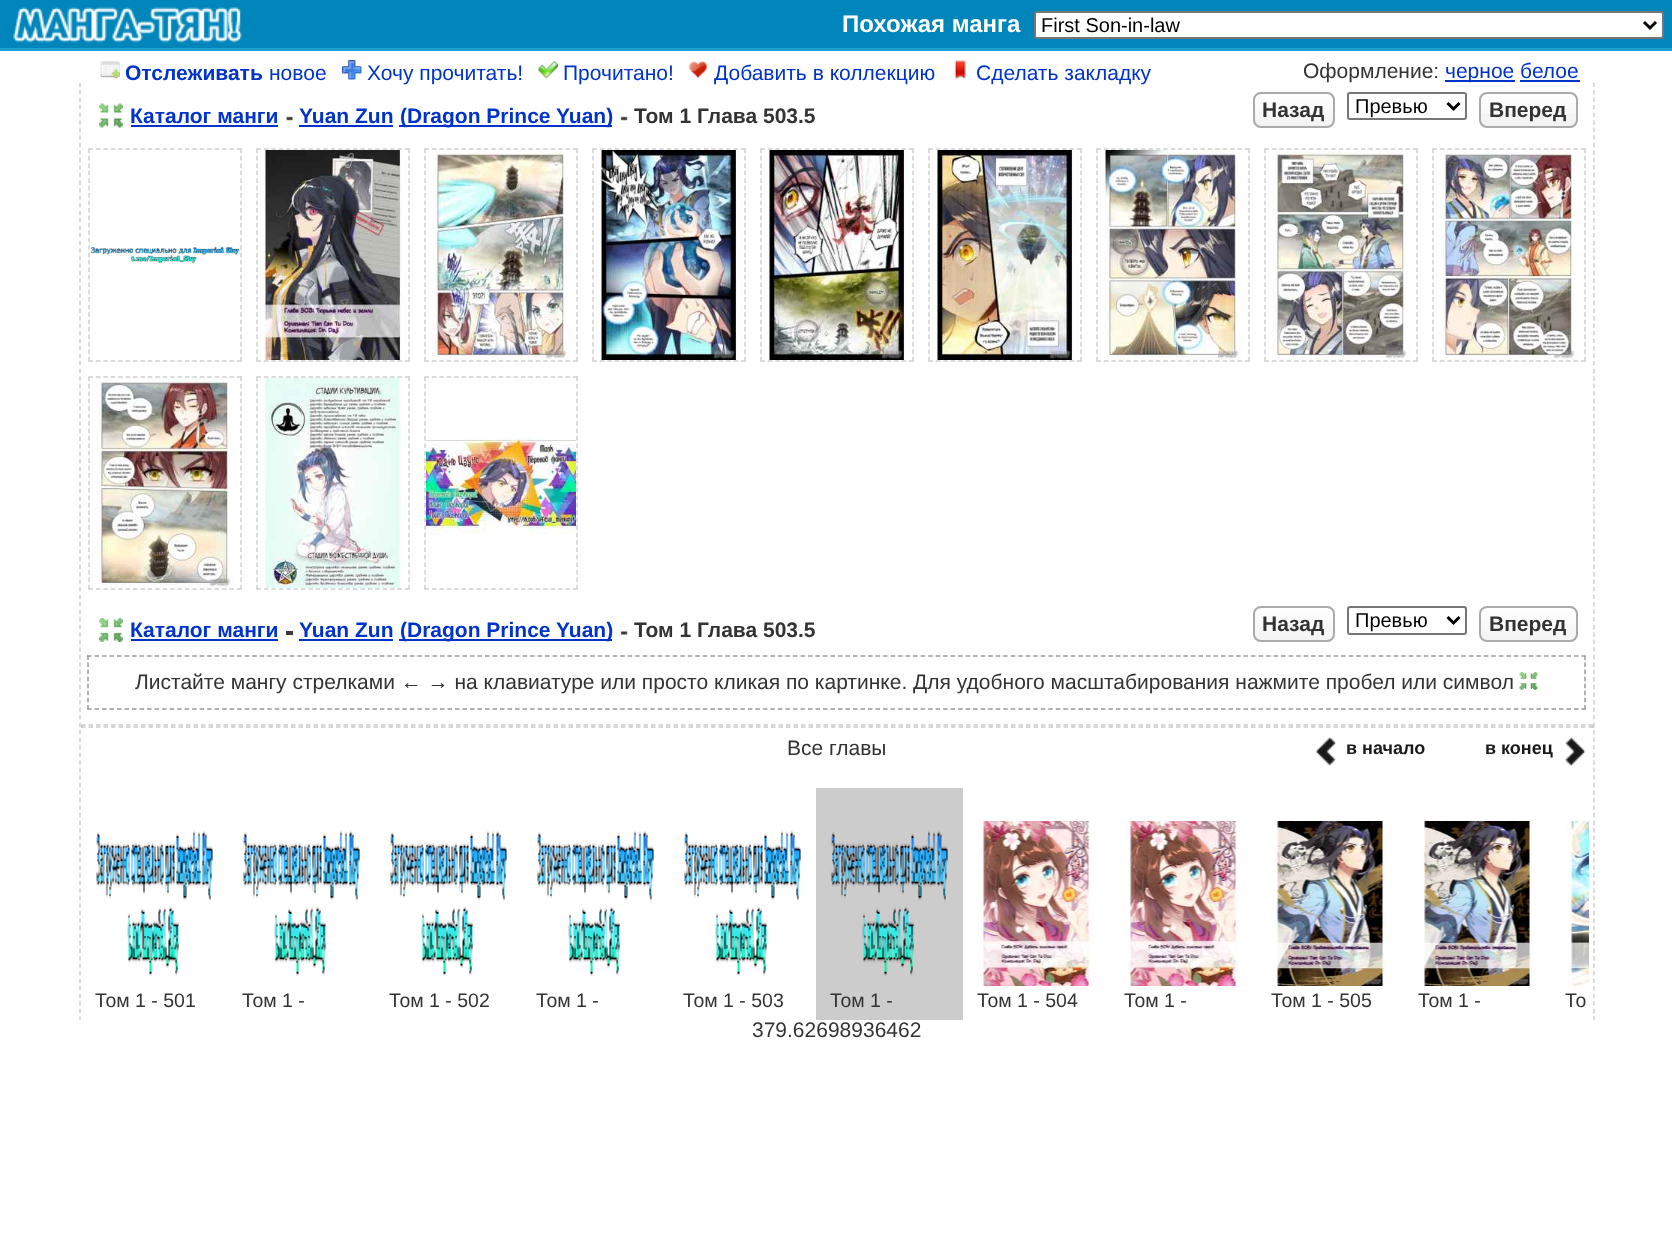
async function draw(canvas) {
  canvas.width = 1672;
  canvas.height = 1250;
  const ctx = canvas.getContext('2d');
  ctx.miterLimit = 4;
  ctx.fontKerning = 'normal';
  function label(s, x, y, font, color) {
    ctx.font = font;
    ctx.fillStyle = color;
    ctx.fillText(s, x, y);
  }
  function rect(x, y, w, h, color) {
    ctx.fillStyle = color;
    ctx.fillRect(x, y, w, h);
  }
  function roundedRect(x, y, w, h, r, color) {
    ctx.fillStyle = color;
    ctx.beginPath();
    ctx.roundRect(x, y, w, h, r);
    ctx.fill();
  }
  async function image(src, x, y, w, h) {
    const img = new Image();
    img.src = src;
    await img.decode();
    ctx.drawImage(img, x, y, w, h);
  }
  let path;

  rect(0, 0, 1672, 1250, '#fff');
  rect(0, 0, 1672, 48, '#0086bb');
  rect(0, 48, 1672, 3, '#19a1d3');
  await image('assets/img1.png', 13, 7, 229, 36);
  label('Похожая манга', 842, 32, 'bold 24px Liberation Sans', '#fff');
  ctx.beginPath();
  ctx.roundRect(1035, 12, 628, 26, 2);
  ctx.fill();
  ctx.strokeStyle = '#767676';
  ctx.lineWidth = 2;
  ctx.stroke();
  path = new Path2D('M1644 22L1650 28L1656 22');
  ctx.strokeStyle = '#000';
  ctx.lineWidth = 3;
  ctx.stroke(path);
  label('First Son-in-law', 1041, 32, '20px Liberation Sans', '#000');
  await image('assets/img2.png', 100, 61, 20, 18);
  label('Отслеживать', 125, 80, 'bold 21px Liberation Sans', '#03c');
  label('новое', 269, 80, '21px Liberation Sans', '#03c');
  await image('assets/img3.png', 342, 60, 20, 20);
  label('Хочу прочитать!', 367, 80, '21px Liberation Sans', '#03c');
  await image('assets/img4.png', 538, 61, 20, 18);
  label('Прочитано!', 563, 80, '21px Liberation Sans', '#03c');
  await image('assets/img5.png', 688, 61, 20, 18);
  label('Добавить в коллекцию', 714, 80, '21px Liberation Sans', '#03c');
  await image('assets/img6.png', 954, 60, 12, 19);
  label('Сделать закладку', 976, 80, '21px Liberation Sans', '#03c');
  label('Оформление:', 1303, 78, '21px Liberation Sans', '#333');
  rect(1445, 80, 70, 2, '#03c');
  label('черное белое', 1445, 78, '21px Liberation Sans', '#03c');
  rect(1520, 80, 60, 2, '#03c');
  path = new Path2D('M1594 82.5V1020');
  ctx.strokeStyle = '#cfcfcf';
  ctx.lineWidth = 1.5;
  ctx.setLineDash([4.5, 3.03]);
  ctx.stroke(path);
  path = new Path2D('M80 82.5V1020');
  ctx.stroke(path);
  await image('assets/img7.png', 99, 103, 24, 25);
  label('Каталог манги', 130, 123, 'bold 21px Liberation Sans', '#03c');
  rect(131, 125, 147, 2, '#03c');
  await image('assets/img8.png', 286, 116, 7, 5);
  label('Yuan Zun', 299, 123, 'bold 21px Liberation Sans', '#03c');
  rect(299, 125, 94, 2, '#03c');
  rect(399, 125, 213, 2, '#03c');
  label('(Dragon Prince Yuan)', 400, 123, 'bold 21px Liberation Sans', '#03c');
  await image('assets/img9.png', 620, 116, 8, 5);
  label('Том 1 Глава 503.5', 634, 123, 'bold 21px Liberation Sans', '#333');
  roundedRect(1253, 92, 82, 36, 8, '#f3f3f3');
  await image('assets/img10.png', 1253, 92, 82, 32);
  ctx.beginPath();
  ctx.roundRect(1254, 93, 80, 34, 7);
  ctx.strokeStyle = '#aaa';
  ctx.lineWidth = 2;
  ctx.setLineDash([]);
  ctx.stroke();
  label('Назад', 1262, 117, 'bold 21px Liberation Sans', '#333');
  ctx.beginPath();
  ctx.roundRect(1348, 93, 118, 26, 2);
  ctx.strokeStyle = '#767676';
  ctx.stroke();
  path = new Path2D('M1447.5 103L1453.5 109L1459.5 103');
  ctx.strokeStyle = '#000';
  ctx.lineWidth = 3;
  ctx.stroke(path);
  label('Превью', 1355, 113, '20px Liberation Sans', '#000');
  roundedRect(1479, 92, 99, 36, 8, '#f3f3f3');
  await image('assets/img11.png', 1479, 92, 99, 22);
  ctx.beginPath();
  ctx.roundRect(1480, 93, 97, 34, 7);
  ctx.strokeStyle = '#aaa';
  ctx.lineWidth = 2;
  ctx.stroke();
  label('Вперед', 1489, 117, 'bold 21px Liberation Sans', '#333');
  path = new Path2D('M88.5 149H241.5');
  ctx.strokeStyle = '#cfcfcf';
  ctx.lineWidth = 1.5;
  ctx.setLineDash([4.5, 2.92]);
  ctx.stroke(path);
  path = new Path2D('M241 148.5V361.5');
  ctx.setLineDash([4.5, 2.94]);
  ctx.stroke(path);
  path = new Path2D('M88.5 361H241.5');
  ctx.setLineDash([4.5, 2.92]);
  ctx.stroke(path);
  path = new Path2D('M89 148.5V361.5');
  ctx.setLineDash([4.5, 2.94]);
  ctx.stroke(path);
  path = new Path2D('M256.5 149H409.5');
  ctx.setLineDash([4.5, 2.92]);
  ctx.stroke(path);
  path = new Path2D('M409 148.5V361.5');
  ctx.setLineDash([4.5, 2.94]);
  ctx.stroke(path);
  path = new Path2D('M256.5 361H409.5');
  ctx.setLineDash([4.5, 2.92]);
  ctx.stroke(path);
  path = new Path2D('M257 148.5V361.5');
  ctx.setLineDash([4.5, 2.94]);
  ctx.stroke(path);
  path = new Path2D('M424.5 149H577.5');
  ctx.setLineDash([4.5, 2.92]);
  ctx.stroke(path);
  path = new Path2D('M577 148.5V361.5');
  ctx.setLineDash([4.5, 2.94]);
  ctx.stroke(path);
  path = new Path2D('M424.5 361H577.5');
  ctx.setLineDash([4.5, 2.92]);
  ctx.stroke(path);
  path = new Path2D('M425 148.5V361.5');
  ctx.setLineDash([4.5, 2.94]);
  ctx.stroke(path);
  path = new Path2D('M592.5 149H745.5');
  ctx.setLineDash([4.5, 2.92]);
  ctx.stroke(path);
  path = new Path2D('M745 148.5V361.5');
  ctx.setLineDash([4.5, 2.94]);
  ctx.stroke(path);
  path = new Path2D('M592.5 361H745.5');
  ctx.setLineDash([4.5, 2.92]);
  ctx.stroke(path);
  path = new Path2D('M593 148.5V361.5');
  ctx.setLineDash([4.5, 2.94]);
  ctx.stroke(path);
  path = new Path2D('M760.5 149H913.5');
  ctx.setLineDash([4.5, 2.92]);
  ctx.stroke(path);
  path = new Path2D('M913 148.5V361.5');
  ctx.setLineDash([4.5, 2.94]);
  ctx.stroke(path);
  path = new Path2D('M760.5 361H913.5');
  ctx.setLineDash([4.5, 2.92]);
  ctx.stroke(path);
  path = new Path2D('M761 148.5V361.5');
  ctx.setLineDash([4.5, 2.94]);
  ctx.stroke(path);
  path = new Path2D('M928.5 149H1081.5');
  ctx.setLineDash([4.5, 2.92]);
  ctx.stroke(path);
  path = new Path2D('M1081 148.5V361.5');
  ctx.setLineDash([4.5, 2.94]);
  ctx.stroke(path);
  path = new Path2D('M928.5 361H1081.5');
  ctx.setLineDash([4.5, 2.92]);
  ctx.stroke(path);
  path = new Path2D('M929 148.5V361.5');
  ctx.setLineDash([4.5, 2.94]);
  ctx.stroke(path);
  path = new Path2D('M1096.5 149H1249.5');
  ctx.setLineDash([4.5, 2.92]);
  ctx.stroke(path);
  path = new Path2D('M1249 148.5V361.5');
  ctx.setLineDash([4.5, 2.94]);
  ctx.stroke(path);
  path = new Path2D('M1096.5 361H1249.5');
  ctx.setLineDash([4.5, 2.92]);
  ctx.stroke(path);
  path = new Path2D('M1097 148.5V361.5');
  ctx.setLineDash([4.5, 2.94]);
  ctx.stroke(path);
  path = new Path2D('M1264.5 149H1417.5');
  ctx.setLineDash([4.5, 2.92]);
  ctx.stroke(path);
  path = new Path2D('M1417 148.5V361.5');
  ctx.setLineDash([4.5, 2.94]);
  ctx.stroke(path);
  path = new Path2D('M1264.5 361H1417.5');
  ctx.setLineDash([4.5, 2.92]);
  ctx.stroke(path);
  path = new Path2D('M1265 148.5V361.5');
  ctx.setLineDash([4.5, 2.94]);
  ctx.stroke(path);
  path = new Path2D('M1432.5 149H1585.5');
  ctx.setLineDash([4.5, 2.92]);
  ctx.stroke(path);
  await image('assets/img12.png', 90, 246, 150, 18);
  await image('assets/img13.png', 258, 150, 144, 210);
  await image('assets/img14.png', 432, 150, 138, 210);
  await image('assets/img15.png', 594, 150, 144, 210);
  await image('assets/img16.png', 769, 150, 137, 210);
  await image('assets/img17.png', 937, 150, 137, 210);
  await image('assets/img18.png', 1104, 150, 138, 210);
  await image('assets/img19.png', 1272, 150, 137, 210);
  path = new Path2D('M1585 148.5V361.5');
  ctx.setLineDash([4.5, 2.94]);
  ctx.stroke(path);
  path = new Path2D('M1432.5 361H1585.5');
  ctx.setLineDash([4.5, 2.92]);
  ctx.stroke(path);
  path = new Path2D('M1433 148.5V361.5');
  ctx.setLineDash([4.5, 2.94]);
  ctx.stroke(path);
  await image('assets/img20.png', 1440, 150, 138, 210);
  path = new Path2D('M88.5 377H241.5');
  ctx.setLineDash([4.5, 2.92]);
  ctx.stroke(path);
  path = new Path2D('M241 376.5V589.5');
  ctx.setLineDash([4.5, 2.94]);
  ctx.stroke(path);
  path = new Path2D('M88.5 589H241.5');
  ctx.setLineDash([4.5, 2.92]);
  ctx.stroke(path);
  path = new Path2D('M89 376.5V589.5');
  ctx.setLineDash([4.5, 2.94]);
  ctx.stroke(path);
  path = new Path2D('M256.5 377H409.5');
  ctx.setLineDash([4.5, 2.92]);
  ctx.stroke(path);
  path = new Path2D('M409 376.5V589.5');
  ctx.setLineDash([4.5, 2.94]);
  ctx.stroke(path);
  path = new Path2D('M256.5 589H409.5');
  ctx.setLineDash([4.5, 2.92]);
  ctx.stroke(path);
  path = new Path2D('M257 376.5V589.5');
  ctx.setLineDash([4.5, 2.94]);
  ctx.stroke(path);
  path = new Path2D('M424.5 377H577.5');
  ctx.setLineDash([4.5, 2.92]);
  ctx.stroke(path);
  await image('assets/img21.png', 96, 378, 138, 210);
  await image('assets/img22.png', 263, 378, 139, 210);
  path = new Path2D('M577 376.5V589.5');
  ctx.setLineDash([4.5, 2.94]);
  ctx.stroke(path);
  path = new Path2D('M424.5 589H577.5');
  ctx.setLineDash([4.5, 2.92]);
  ctx.stroke(path);
  path = new Path2D('M425 376.5V589.5');
  ctx.setLineDash([4.5, 2.94]);
  ctx.stroke(path);
  await image('assets/img23.png', 426, 438, 150, 97);
  await image('assets/img24.png', 99, 618, 24, 24);
  label('Каталог манги', 130, 637, 'bold 21px Liberation Sans', '#03c');
  rect(286, 631, 7, 4, '#3b3a36');
  rect(131, 639, 147, 2, '#03c');
  label('Yuan Zun', 299, 637, 'bold 21px Liberation Sans', '#03c');
  rect(299, 639, 94, 2, '#03c');
  rect(399, 639, 213, 2, '#03c');
  label('(Dragon Prince Yuan)', 400, 637, 'bold 21px Liberation Sans', '#03c');
  await image('assets/img25.png', 620, 631, 8, 4);
  label('Том 1 Глава 503.5', 634, 637, 'bold 21px Liberation Sans', '#333');
  await image('assets/img26.png', 1253, 606, 82, 36);
  ctx.beginPath();
  ctx.roundRect(1254, 607, 80, 34, 7);
  ctx.strokeStyle = '#aaa';
  ctx.lineWidth = 2;
  ctx.setLineDash([]);
  ctx.stroke();
  label('Назад', 1262, 631, 'bold 21px Liberation Sans', '#333');
  ctx.beginPath();
  ctx.roundRect(1348, 607, 118, 27, 2);
  ctx.strokeStyle = '#767676';
  ctx.stroke();
  path = new Path2D('M1447.5 617L1453.5 623L1459.5 617');
  ctx.strokeStyle = '#000';
  ctx.lineWidth = 3;
  ctx.stroke(path);
  label('Превью', 1355, 627, '20px Liberation Sans', '#000');
  await image('assets/img27.png', 1479, 606, 99, 36);
  ctx.beginPath();
  ctx.roundRect(1480, 607, 97, 34, 7);
  ctx.strokeStyle = '#aaa';
  ctx.lineWidth = 2;
  ctx.stroke();
  label('Вперед', 1489, 631, 'bold 21px Liberation Sans', '#333');
  path = new Path2D('M87 656H1585.5');
  ctx.strokeStyle = '#999';
  ctx.lineWidth = 1.5;
  ctx.setLineDash([4.5, 3.01]);
  ctx.stroke(path);
  path = new Path2D('M1585 655.5V709.5');
  ctx.setLineDash([4.5, 2.56]);
  ctx.stroke(path);
  path = new Path2D('M87 709H1585.5');
  ctx.setLineDash([4.5, 3.01]);
  ctx.stroke(path);
  path = new Path2D('M88 655.5V709.5');
  ctx.setLineDash([4.5, 2.56]);
  ctx.stroke(path);
  label('Листайте мангу стрелками ← → на клавиатуре или просто кликая по картинке. Для удобного масштабирования нажмите пробел или символ', 135, 689, '21px Liberation Sans', '#333');
  await image('assets/img28.png', 1519, 672, 19, 18);
  path = new Path2D('M81 725H1593');
  ctx.strokeStyle = '#ccc';
  ctx.setLineDash([4.5, 3]);
  ctx.stroke(path);
  rect(1592, 725, 2, 3, '#ccc');
  path = new Path2D('M81 727H1593');
  ctx.stroke(path);
  rect(81, 725, 2, 3, '#ccc');
  label('Все главы', 787, 755, '21px Liberation Sans', '#333');
  await image('assets/img29.png', 1315, 737, 21, 29);
  label('в начало', 1346, 754, 'bold 18px Liberation Sans', '#191919');
  label('в конец', 1485, 754, 'bold 18px Liberation Sans', '#191919');
  await image('assets/img30.png', 1565, 737, 21, 29);
  await image('assets/img31.png', 96, 830, 117, 147);
  label('Том 1 - 501', 95, 1007, '19.5px Liberation Sans', '#333');
  await image('assets/img31.png', 243, 830, 117, 147);
  label('Том 1 -', 242, 1007, '19.5px Liberation Sans', '#333');
  await image('assets/img31.png', 390, 830, 117, 147);
  label('Том 1 - 502', 389, 1007, '19.5px Liberation Sans', '#333');
  await image('assets/img32.png', 537, 830, 117, 147);
  label('Том 1 -', 536, 1007, '19.5px Liberation Sans', '#333');
  await image('assets/img31.png', 684, 830, 117, 147);
  label('Том 1 - 503', 683, 1007, '19.5px Liberation Sans', '#333');
  rect(816, 788, 147, 232, '#ccc');
  await image('assets/img33.png', 831, 830, 117, 147);
  label('Том 1 -', 830, 1007, '19.5px Liberation Sans', '#333');
  await image('assets/img34.png', 978, 821, 113, 165);
  label('Том 1 - 504', 977, 1007, '19.5px Liberation Sans', '#333');
  await image('assets/img34.png', 1125, 821, 113, 165);
  label('Том 1 -', 1124, 1007, '19.5px Liberation Sans', '#333');
  await image('assets/img35.png', 1273, 821, 112, 165);
  label('Том 1 - 505', 1271, 1007, '19.5px Liberation Sans', '#333');
  await image('assets/img35.png', 1420, 821, 112, 165);
  label('Том 1 -', 1418, 1007, '19.5px Liberation Sans', '#333');
  await image('assets/img36.png', 1565, 821, 24, 165);
  label('То', 1565, 1007, '19.5px Liberation Sans', '#333');
  label('379.62698936462', 752, 1037, '21px Liberation Sans', '#333');
}

draw(document.querySelector('canvas'));
